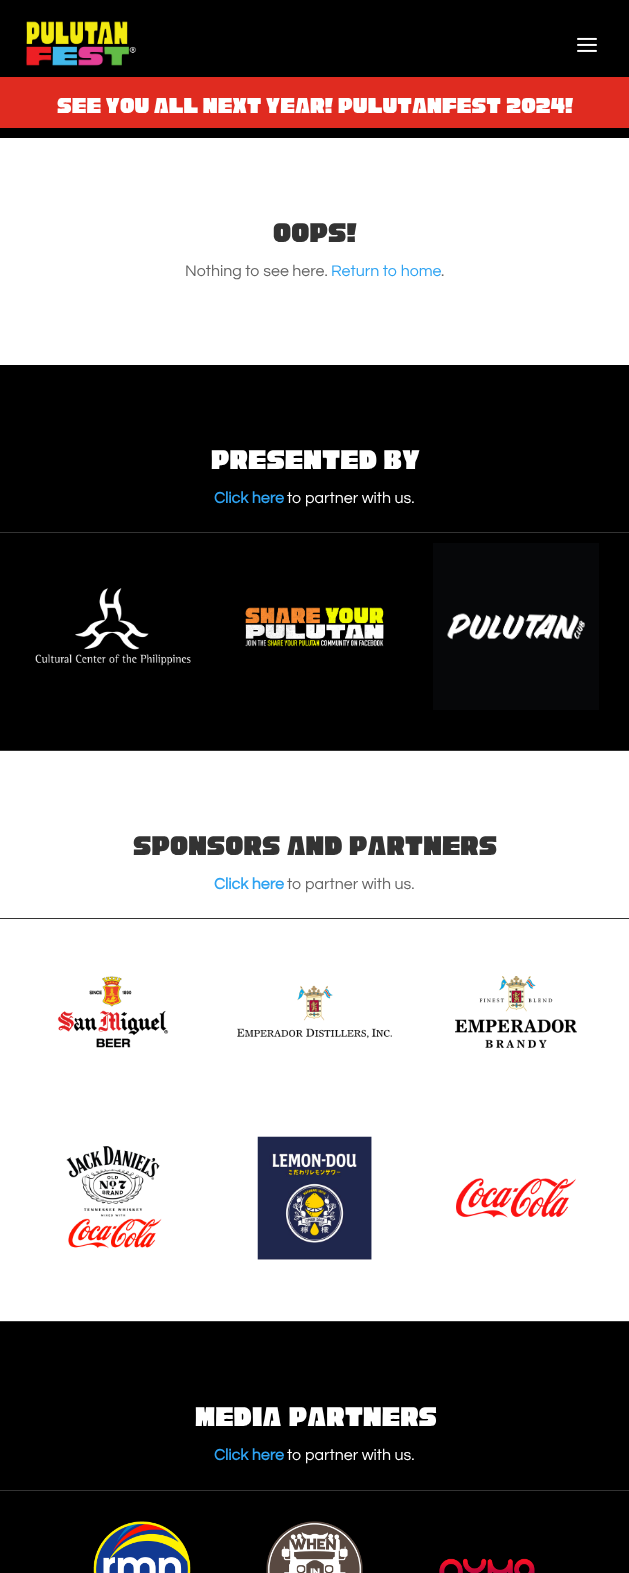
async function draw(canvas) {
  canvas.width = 629;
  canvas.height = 1573;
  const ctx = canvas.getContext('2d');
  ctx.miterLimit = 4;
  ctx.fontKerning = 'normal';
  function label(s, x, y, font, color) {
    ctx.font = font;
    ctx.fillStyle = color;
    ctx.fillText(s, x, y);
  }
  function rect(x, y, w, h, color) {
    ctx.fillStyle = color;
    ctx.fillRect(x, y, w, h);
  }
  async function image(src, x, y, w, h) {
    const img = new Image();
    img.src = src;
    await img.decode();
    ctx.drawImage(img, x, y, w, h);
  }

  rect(0, 0, 629, 1573, '#fff');
  rect(0, 0, 629, 138, '#000');
  await image('assets/img1.png', 26, 21, 111, 45);
  await image('assets/img2.png', 577, 37, 20, 15);
  rect(0, 77, 629, 51, '#e02b20');
  label('SEE YOU ALL NEXT YEAR!', 57, 113, '24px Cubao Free', '#fff');
  ctx.wordSpacing = '1px';
  label('PULUTANFEST 2024!', 338, 113, '24px Cubao Free', '#fff');
  ctx.wordSpacing = '0px';
  label('Oops!', 273, 242, '30px Cubao Free', '#333');
  label('Nothing to see here.', 185, 276, '16px Questrial', '#666');
  label('Return to home', 331, 276, '16px Questrial', '#2ea3f2');
  label('.', 441, 276, '16px Questrial', '#666');
  rect(0, 365, 629, 1208, '#000');
  rect(0, 750, 629, 1, '#333');
  rect(0, 532, 629, 1, '#333');
  ctx.wordSpacing = '1px';
  label('PRESENTED BY', 211, 469, '30px Cubao Free', '#fff');
  ctx.wordSpacing = '0px';
  label('Click here', 214, 503, 'bold 16px Questrial', '#2ea3f2');
  label('to partner with us.', 287, 503, '16px Questrial', '#fff');
  await image('assets/img3.png', 35, 588, 156, 78);
  await image('assets/img4.png', 245, 607, 139, 40);
  await image('assets/img5.png', 433, 543, 166, 167);
  rect(0, 751, 629, 570, '#fff');
  rect(0, 1321, 629, 1, '#333');
  rect(0, 918, 629, 1, '#333');
  ctx.wordSpacing = '1px';
  label('SPONSORS AND PARTNERS', 133, 855, '30px Cubao Free', '#333');
  ctx.wordSpacing = '0px';
  label('Click here', 214, 889, 'bold 16px Questrial', '#2ea3f2');
  label('to partner with us.', 287, 889, '16px Questrial', '#666');
  await image('assets/img6.png', 57, 976, 112, 72);
  await image('assets/img7.png', 237, 985, 155, 54);
  await image('assets/img8.png', 455, 976, 122, 72);
  await image('assets/img9.png', 66, 1146, 96, 103);
  await image('assets/img10.png', 257, 1136, 115, 124);
  await image('assets/img11.png', 456, 1178, 120, 40);
  rect(0, 1490, 629, 1, '#333');
  ctx.wordSpacing = '2px';
  label('MEDIA PARTNERS', 195, 1426, '30px Cubao Free', '#fff');
  ctx.wordSpacing = '0px';
  label('Click here', 214, 1460, 'bold 16px Questrial', '#2ea3f2');
  label('to partner with us.', 287, 1460, '16px Questrial', '#fff');
  await image('assets/img12.png', 93, 1521, 98, 52);
  await image('assets/img13.png', 266, 1521, 97, 52);
  await image('assets/img14.png', 439, 1558, 96, 15);
}

draw(document.querySelector('canvas'));
